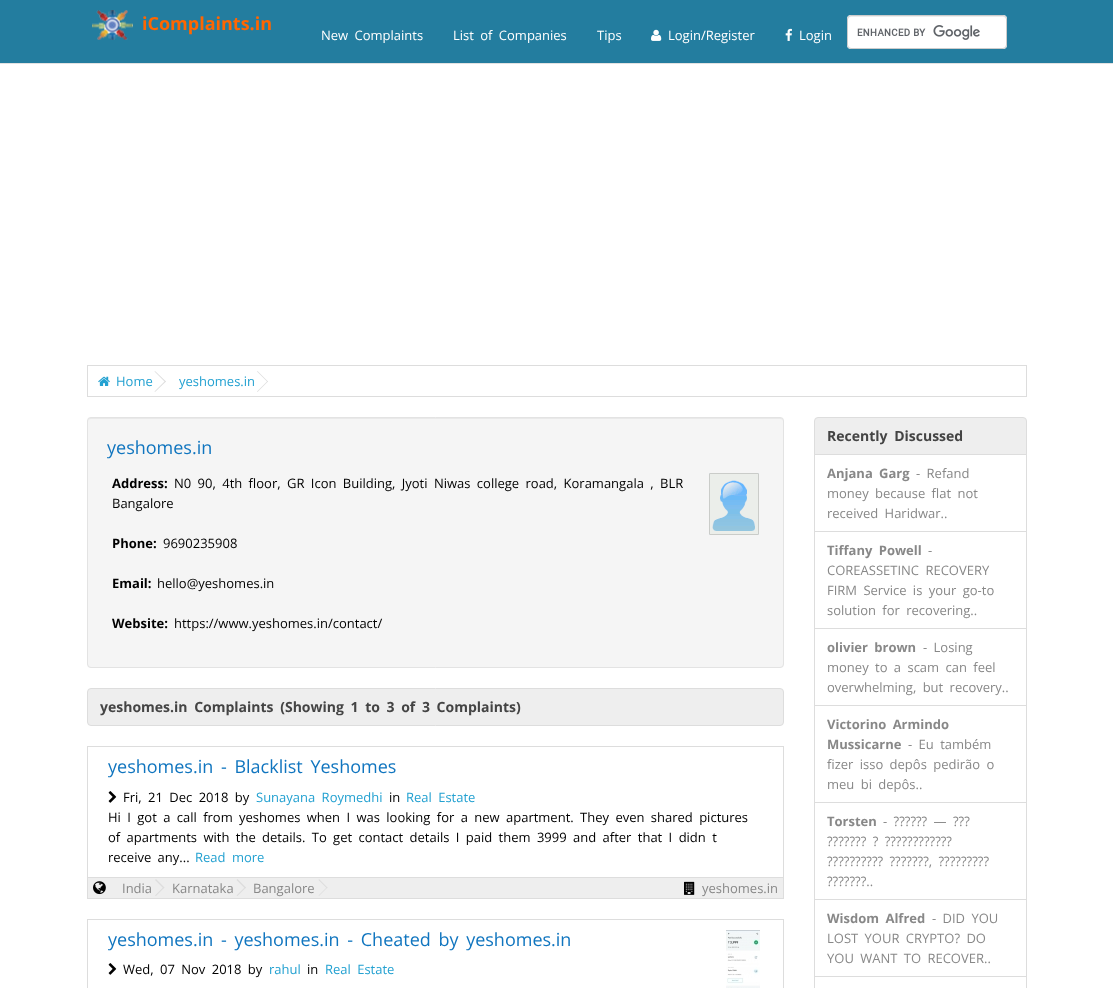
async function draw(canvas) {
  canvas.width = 1113;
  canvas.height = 988;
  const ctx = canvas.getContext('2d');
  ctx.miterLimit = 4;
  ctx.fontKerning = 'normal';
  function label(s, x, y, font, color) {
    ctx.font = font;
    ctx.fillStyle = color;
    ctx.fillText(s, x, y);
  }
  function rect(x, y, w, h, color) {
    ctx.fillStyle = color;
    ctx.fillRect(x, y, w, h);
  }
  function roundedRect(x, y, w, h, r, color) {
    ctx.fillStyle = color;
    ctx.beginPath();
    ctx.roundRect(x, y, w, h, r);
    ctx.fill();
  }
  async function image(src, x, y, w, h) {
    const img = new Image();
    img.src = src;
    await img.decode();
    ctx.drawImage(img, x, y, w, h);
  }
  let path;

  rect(0, 0, 1113, 988, '#fff');
  rect(0, 0, 1113, 63, '#237d9f');
  rect(0, 63, 1113, 1, '#e2e2e2');
  await image('assets/img1.png', 92, 10, 41, 30);
  label('iComplaints.in', 142, 30, 'bold 18px Open Sans', '#f60');
  ctx.wordSpacing = '3px';
  label('New Complaints', 321, 40, '13px Open Sans', '#fff');
  label('List of Companies', 453, 40, '13px Open Sans', '#fff');
  ctx.wordSpacing = '0px';
  label('Tips', 597, 40, '13px Open Sans', '#fff');
  await image('assets/img2.png', 651, 29, 11, 12);
  label('Login/Register', 668, 40, '13px Open Sans', '#fff');
  await image('assets/img3.png', 785, 28, 7, 13);
  label('Login', 799, 40, '13px Open Sans', '#fff');
  roundedRect(847, 15, 160, 34, 4, '#fff');
  await image('assets/img4.png', 857, 25, 123, 15);
  ctx.fillStyle = '#ececec';
  path = new Path2D('M851 17H1003C1005 17 1006 18 1006 20C1006 18 1005 16 1003 16H850C848 16 848 18 848 20C848 18 849 17 851 17Z');
  ctx.fill(path);
  ctx.beginPath();
  ctx.roundRect(847.5, 15.5, 159, 33, 3.5);
  ctx.strokeStyle = '#ccc';
  ctx.stroke();
  ctx.strokeStyle = '#ddd';
  ctx.strokeRect(87.5, 365.5, 939, 31);
  await image('assets/img5.png', 98, 376, 12, 10);
  label('Home', 116, 386, '13px Open Sans', '#23a1d1');
  ctx.fillStyle = '#ddd';
  path = new Path2D('M154.5 371.5L155 371L166 381.5L165 382Z');
  ctx.fill(path);
  path = new Path2D('M154.5 391.5L165 381L166 381.5L155 392Z');
  ctx.fill(path);
  label('yeshomes.in', 179, 386, '13px Open Sans', '#23a1d1');
  ctx.fillStyle = '#ddd';
  path = new Path2D('M257 371.5L257.5 371L268 381.5L267.5 382Z');
  ctx.fill(path);
  path = new Path2D('M257 391.5L267.5 381L268 381.5L257.5 392Z');
  ctx.fill(path);
  roundedRect(87, 417, 697, 251, 4, '#f5f5f5');
  ctx.fillStyle = '#e9e9e9';
  path = new Path2D('M91 419H780C782 419 783 420 783 422C783 420 782 418 780 418H91C89 418 88 420 88 422C88 420 89 419 91 419Z');
  ctx.fill(path);
  ctx.beginPath();
  ctx.roundRect(87.5, 417.5, 696, 250, 3.5);
  ctx.strokeStyle = '#e3e3e3';
  ctx.stroke();
  label('yeshomes.in', 107, 454, '18px Open Sans', '#1075bf');
  label('Address:', 112, 488, 'bold 13px Open Sans', '#000');
  ctx.wordSpacing = '3px';
  label('N0 90, 4th floor, GR Icon Building, Jyoti Niwas college road, Koramangala , BLR', 174, 488, '13px Open Sans', '#000');
  ctx.wordSpacing = '0px';
  label('Bangalore', 112, 508, '13px Open Sans', '#000');
  await image('assets/img6.png', 709, 473, 50, 62);
  label('Phone:', 112, 548, 'bold 13px Open Sans', '#000');
  label('9690235908', 163, 548, '13px Open Sans', '#000');
  label('Email:', 112, 588, 'bold 13px Open Sans', '#000');
  label('hello@yeshomes.in', 157, 588, '13px Open Sans', '#000');
  label('Website:', 112, 628, 'bold 13px Open Sans', '#000');
  label('https://www.yeshomes.in/contact/', 174, 628, '13px Open Sans', '#000');
  ctx.fillStyle = '#eee';
  ctx.beginPath();
  ctx.roundRect(87.5, 688.5, 696, 37, 3.5);
  ctx.fill();
  ctx.strokeStyle = '#ddd';
  ctx.stroke();
  ctx.wordSpacing = '3px';
  label('yeshomes.in Complaints (Showing 1 to 3 of 3 Complaints)', 100, 712, 'bold 14px Open Sans', '#444');
  ctx.strokeRect(87.5, 746.5, 696, 152);
  label('yeshomes.in - Blacklist Yeshomes', 108, 773, '18px Open Sans', '#1075bf');
  await image('assets/img7.png', 108, 791, 9, 12);
  label('Fri, 21 Dec 2018 by', 123, 802, '13px Open Sans', '#000');
  label('Sunayana Roymedhi', 256, 802, '13px Open Sans', '#23a1d1');
  ctx.wordSpacing = '0px';
  label('in', 389, 802, '13px Open Sans', '#000');
  ctx.wordSpacing = '3px';
  label('Real Estate', 406, 802, '13px Open Sans', '#23a1d1');
  label('Hi I got a call from yeshomes when I was looking for a new apartment. They even shared pictures', 108, 822, '13px Open Sans', '#000');
  label('of apartments with the details. To get contact details I paid them 3999 and after that I didn t', 108, 842, '13px Open Sans', '#000');
  label('receive any...', 108, 862, '13px Open Sans', '#000');
  label('Read more', 195, 862, '13px Open Sans', '#23a1d1');
  rect(88, 878, 695, 20, '#eee');
  rect(88, 877, 695, 1, '#ddd');
  await image('assets/img8.png', 93, 881, 13, 14);
  ctx.wordSpacing = '0px';
  label('India', 122, 893, '13px Open Sans', '#888');
  ctx.fillStyle = '#ddd';
  path = new Path2D('M155 880L156 879L164.5 887.5L163.5 888.5Z');
  ctx.fill(path);
  path = new Path2D('M155 895.5L163.5 887L164.5 887.5L156 896Z');
  ctx.fill(path);
  label('Karnataka', 172, 893, '13px Open Sans', '#888');
  ctx.fillStyle = '#ddd';
  path = new Path2D('M236.5 880L237.5 879L246 887.5L245 888.5Z');
  ctx.fill(path);
  path = new Path2D('M236.5 895.5L245 887L246 887.5L237.5 896Z');
  ctx.fill(path);
  label('Bangalore', 253, 893, '13px Open Sans', '#888');
  ctx.fillStyle = '#ddd';
  path = new Path2D('M318.5 880L319 879L327.5 887.5L327 888.5Z');
  ctx.fill(path);
  path = new Path2D('M318.5 895.5L327 887L327.5 887.5L319 896Z');
  ctx.fill(path);
  await image('assets/img9.png', 684, 881, 11, 14);
  label('yeshomes.in', 702, 893, '13px Open Sans', '#888');
  ctx.strokeRect(87.5, 919.5, 696, 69);
  ctx.wordSpacing = '3px';
  label('yeshomes.in - yeshomes.in - Cheated by yeshomes.in', 108, 946, '18px Open Sans', '#1075bf');
  await image('assets/img7.png', 108, 963, 9, 12);
  label('Wed, 07 Nov 2018 by', 123, 974, '13px Open Sans', '#000');
  ctx.wordSpacing = '0px';
  label('rahul', 269, 974, '13px Open Sans', '#23a1d1');
  label('in', 307, 974, '13px Open Sans', '#000');
  ctx.wordSpacing = '3px';
  label('Real Estate', 325, 974, '13px Open Sans', '#23a1d1');
  await image('assets/img10.png', 726, 930, 34, 58);
  ctx.strokeRect(814.5, 454.5, 212, 77);
  ctx.fillStyle = '#eee';
  ctx.beginPath();
  ctx.roundRect(814.5, 417.5, 212, 37, [3.5, 3.5, 0, 0]);
  ctx.fill();
  ctx.stroke();
  label('Recently Discussed', 827, 441, 'bold 14px Open Sans', '#444');
  label('Anjana Garg', 827, 478, 'bold 13px Open Sans', '#888');
  label('- Refand', 916, 478, '13px Open Sans', '#888');
  label('money because flat not', 827, 498, '13px Open Sans', '#888');
  label('received Haridwar..', 827, 518, '13px Open Sans', '#888');
  ctx.strokeRect(814.5, 531.5, 212, 97);
  label('Tiffany Powell', 827, 555, 'bold 13px Open Sans', '#888');
  ctx.wordSpacing = '0px';
  label('-', 928, 555, '13px Open Sans', '#888');
  ctx.wordSpacing = '3px';
  label('COREASSETINC RECOVERY', 827, 575, '13px Open Sans', '#888');
  label('FIRM Service is your go-to', 827, 595, '13px Open Sans', '#888');
  label('solution for recovering..', 827, 615, '13px Open Sans', '#888');
  ctx.strokeRect(814.5, 628.5, 212, 77);
  label('olivier brown', 827, 652, 'bold 13px Open Sans', '#888');
  label('- Losing', 923, 652, '13px Open Sans', '#888');
  label('money to a scam can feel', 827, 672, '13px Open Sans', '#888');
  label('overwhelming, but recovery..', 827, 692, '13px Open Sans', '#888');
  ctx.strokeRect(814.5, 705.5, 212, 97);
  label('Victorino Armindo', 827, 729, 'bold 13px Open Sans', '#888');
  ctx.wordSpacing = '0px';
  label('Mussicarne', 827, 749, 'bold 13px Open Sans', '#888');
  ctx.wordSpacing = '3px';
  label('- Eu também', 908, 749, '13px Open Sans', '#888');
  label('fizer isso depôs pedirão o', 827, 769, '13px Open Sans', '#888');
  label('meu bi depôs..', 827, 789, '13px Open Sans', '#888');
  ctx.strokeRect(814.5, 802.5, 212, 97);
  ctx.wordSpacing = '0px';
  label('Torsten', 827, 826, 'bold 13px Open Sans', '#888');
  ctx.wordSpacing = '3px';
  label('- ?????? — ???', 883, 826, '13px Open Sans', '#888');
  label('??????? ? ????????????', 827, 846, '13px Open Sans', '#888');
  label('?????????? ???????, ?????????', 827, 866, '13px Open Sans', '#888');
  ctx.wordSpacing = '0px';
  label('???????..', 827, 886, '13px Open Sans', '#888');
  ctx.strokeRect(814.5, 899.5, 212, 77);
  ctx.wordSpacing = '3px';
  label('Wisdom Alfred', 827, 923, 'bold 13px Open Sans', '#888');
  label('- DID YOU', 932, 923, '13px Open Sans', '#888');
  label('LOST YOUR CRYPTO? DO', 827, 943, '13px Open Sans', '#888');
  label('YOU WANT TO RECOVER..', 827, 963, '13px Open Sans', '#888');
  ctx.strokeRect(814.5, 976.5, 212, 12);
}

draw(document.querySelector('canvas'));
